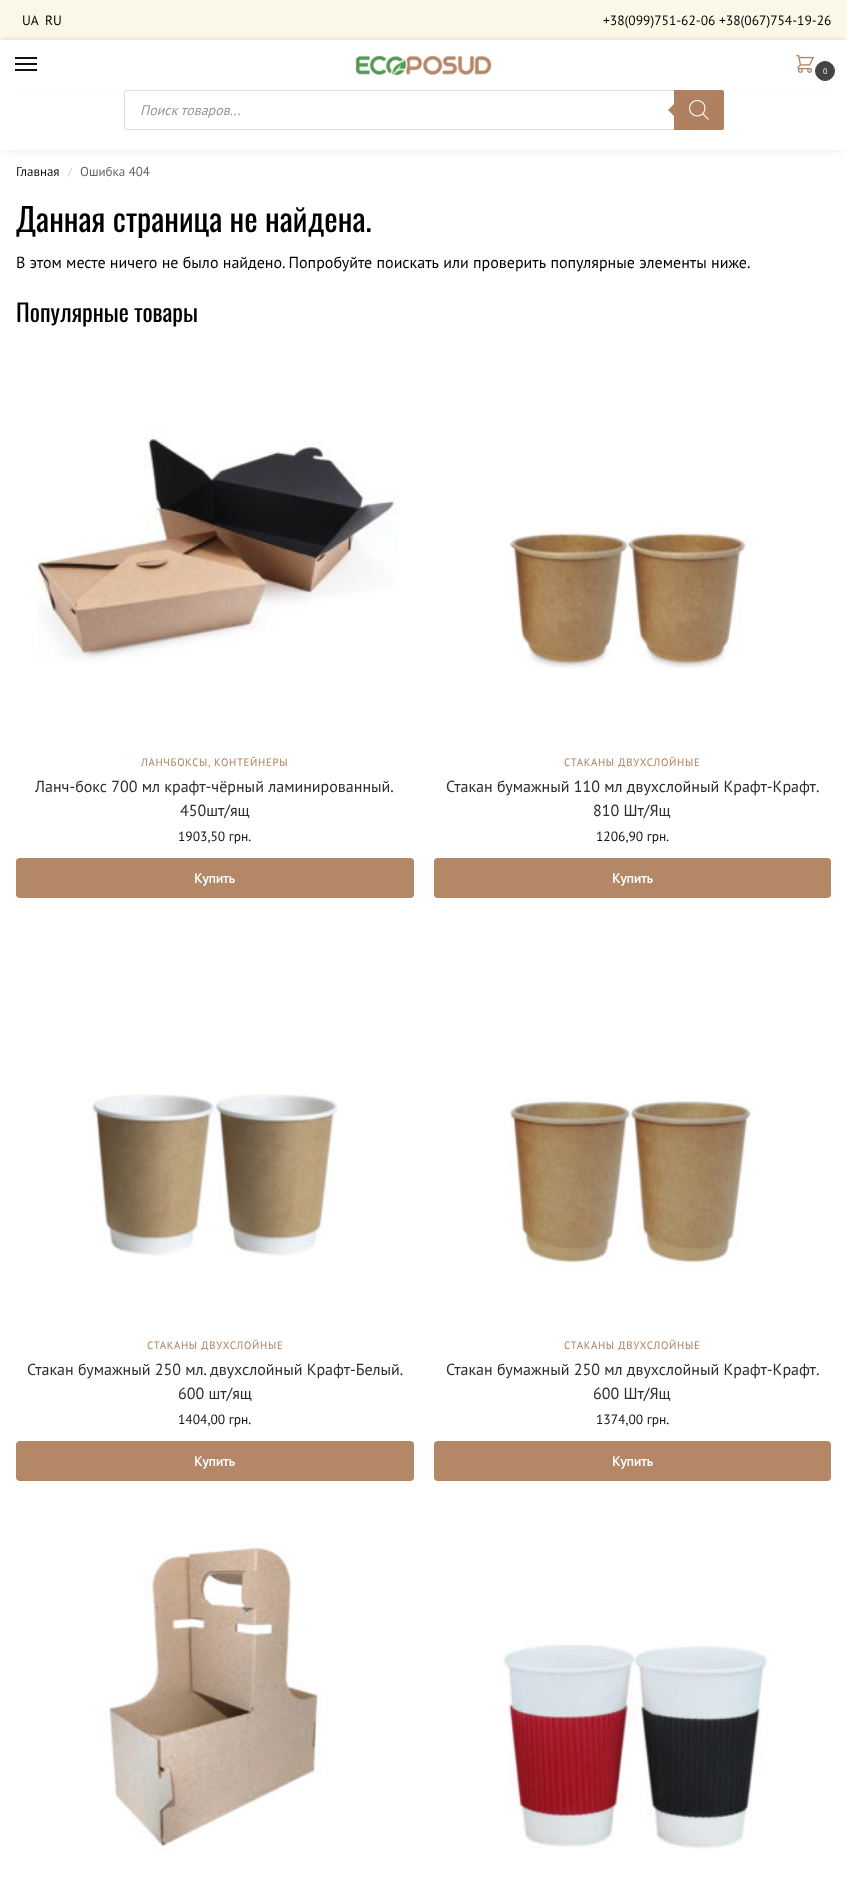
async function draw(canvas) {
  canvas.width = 862;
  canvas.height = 1892;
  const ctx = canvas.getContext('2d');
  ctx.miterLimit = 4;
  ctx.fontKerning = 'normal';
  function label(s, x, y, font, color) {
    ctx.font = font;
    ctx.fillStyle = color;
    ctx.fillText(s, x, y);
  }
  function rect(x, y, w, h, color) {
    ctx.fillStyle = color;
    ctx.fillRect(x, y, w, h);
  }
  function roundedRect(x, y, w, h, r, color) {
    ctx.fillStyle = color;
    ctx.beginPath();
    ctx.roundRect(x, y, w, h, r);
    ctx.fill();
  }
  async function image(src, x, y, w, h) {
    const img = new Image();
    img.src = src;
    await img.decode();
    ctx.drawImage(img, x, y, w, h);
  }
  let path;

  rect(0, 0, 862, 1892, '#fff');
  rect(0, 0, 847, 39, '#fcf8e7');
  rect(0, 39, 847, 1, '#eee');
  label('UA', 22, 25, '13.5px PT Sans', '#000');
  label('RU', 45, 25, '13.5px PT Sans', '#000');
  label('+38(099)751-62-06 +38(067)754-19-26', 603, 25, '13.5px PT Sans', '#000');
  ctx.save();
  ctx.beginPath();
  ctx.rect(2, 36, 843, 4);
  ctx.clip();
  ctx.fillStyle = '#00000014';
  ctx.filter = 'blur(7.5px)';
  ctx.beginPath();
  ctx.rect(0, 41, 847, 50);
  ctx.fill();
  ctx.filter = 'none';
  ctx.restore();
  rect(15, 57, 22, 2, '#111');
  rect(15, 63, 22, 2, '#111');
  rect(15, 69, 22, 2, '#111');
  await image('assets/img1.png', 355, 55, 137, 20);
  await image('assets/img2.png', 796, 55, 18, 18);
  ctx.fillStyle = '#444';
  ctx.beginPath();
  ctx.arc(825, 71, 9.5, 0, 2 * Math.PI);
  ctx.fill();
  ctx.strokeStyle = '#444';
  ctx.stroke();
  label('0', 823, 74, '8px PT Sans', '#fff');
  ctx.fillStyle = '#0000002e';
  ctx.filter = 'blur(5px)';
  ctx.beginPath();
  ctx.rect(5, 98, 837, 50);
  ctx.fill();
  ctx.filter = 'none';
  rect(0, 90, 847, 60, '#fff');
  ctx.beginPath();
  ctx.roundRect(124.5, 90.5, 599, 39, 2.5);
  ctx.strokeStyle = '#ddd';
  ctx.stroke();
  label('Поиск товаров...', 140, 115, 'italic 14px PT Sans', '#999');
  ctx.fillStyle = '#af805f';
  ctx.beginPath();
  ctx.roundRect(674, 90, 50, 40, [0, 2, 2, 0]);
  ctx.fill();
  path = new Path2D('M676 102V118L668 110Z');
  ctx.fill(path);
  await image('assets/img3.png', 689, 100, 20, 20);
  rect(847, 36, 9, 113, '#fff');
  label('Главная', 16, 176, '13px PT Sans', '#111');
  label('/', 68, 175, '10px PT Sans', '#c2c2c2');
  label('Ошибка 404', 80, 176, '13px PT Sans', '#666');
  label('Данная страница не найдена.', 16, 232, '32px Oswald', '#000');
  label('В этом месте ничего не было найдено. Попробуйте поискать или проверить популярные элементы ниже.', 16, 268, '16px PT Sans', '#000');
  label('Популярные товары', 16, 322, '24px Oswald', '#000');
  await image('assets/img4.png', 37, 430, 362, 233);
  ctx.letterSpacing = '0.7px';
  label('ЛАНЧБОКСЫ, КОНТЕЙНЕРЫ', 141, 766, '10.75px PT Sans', '#af805f');
  ctx.letterSpacing = '0px';
  label('Ланч-бокс 700 мл крафт-чёрный ламинированный.', 35, 792, '16px PT Sans', '#2c2d33');
  label('450шт/ящ', 180, 816, '16px PT Sans', '#2c2d33');
  label('1903,50 грн.', 178, 841, '13.5px PT Sans', '#111');
  roundedRect(16, 858, 398, 40, 4, '#b48767');
  label('Купить', 194, 883, 'bold 13.5px PT Sans', '#fff');
  await image('assets/img5.png', 508, 527, 243, 142);
  ctx.letterSpacing = '0.7px';
  label('СТАКАНЫ ДВУХСЛОЙНЫЕ', 564, 766, '10.75px PT Sans', '#af805f');
  ctx.letterSpacing = '0px';
  label('Стакан бумажный 110 мл двухслойный Крафт-Крафт.', 446, 792, '16px PT Sans', '#2c2d33');
  label('810 Шт/Ящ', 593, 816, '16px PT Sans', '#2c2d33');
  label('1206,90 грн.', 596, 841, '13.5px PT Sans', '#111');
  roundedRect(434, 858, 397, 40, 4, '#b48767');
  label('Купить', 612, 883, 'bold 13.5px PT Sans', '#fff');
  await image('assets/img6.png', 90, 1094, 248, 162);
  ctx.letterSpacing = '0.7px';
  label('СТАКАНЫ ДВУХСЛОЙНЫЕ', 147, 1349, '10.75px PT Sans', '#af805f');
  ctx.letterSpacing = '0px';
  label('Стакан бумажный 250 мл. двухслойный Крафт-Белый.', 27, 1375, '16px PT Sans', '#2c2d33');
  label('600 шт/ящ', 178, 1399, '16px PT Sans', '#2c2d33');
  label('1404,00 грн.', 178, 1424, '13.5px PT Sans', '#111');
  roundedRect(16, 1441, 398, 40, 4, '#b48767');
  label('Купить', 194, 1466, 'bold 13.5px PT Sans', '#fff');
  await image('assets/img7.png', 508, 1098, 244, 170);
  ctx.letterSpacing = '0.7px';
  label('СТАКАНЫ ДВУХСЛОЙНЫЕ', 564, 1349, '10.75px PT Sans', '#af805f');
  ctx.letterSpacing = '0px';
  label('Стакан бумажный 250 мл двухслойный Крафт-Крафт.', 446, 1375, '16px PT Sans', '#2c2d33');
  label('600 Шт/Ящ', 593, 1399, '16px PT Sans', '#2c2d33');
  label('1374,00 грн.', 596, 1424, '13.5px PT Sans', '#111');
  roundedRect(434, 1441, 397, 40, 4, '#b48767');
  label('Купить', 612, 1466, 'bold 13.5px PT Sans', '#fff');
  await image('assets/img8.png', 101, 1543, 222, 307);
  await image('assets/img9.png', 498, 1644, 270, 205);
}

draw(document.querySelector('canvas'));
